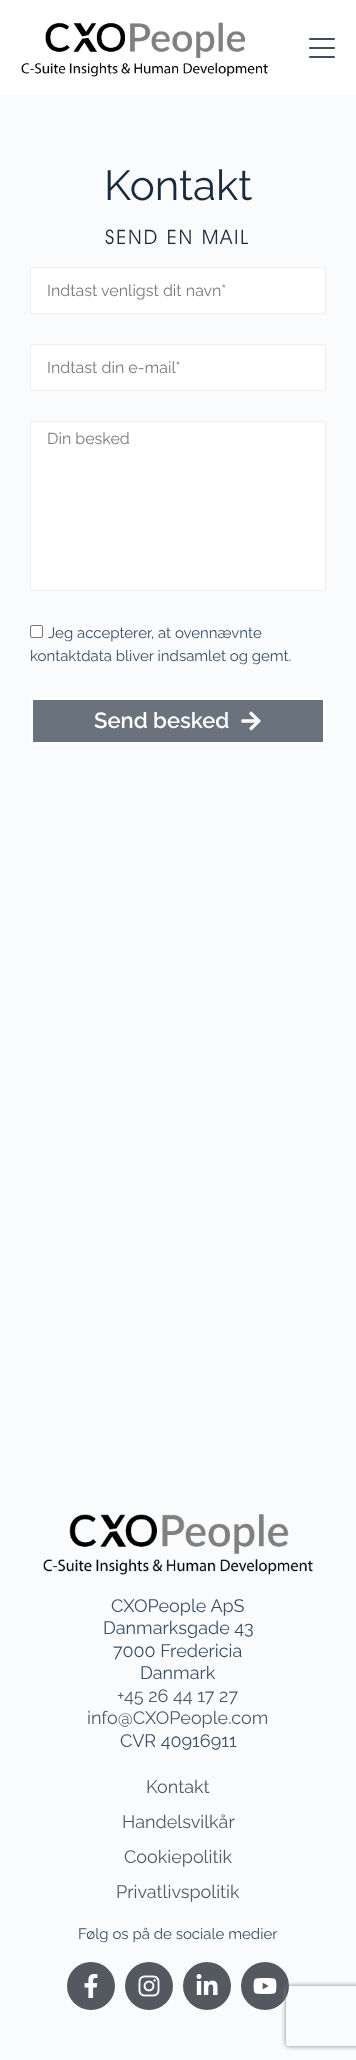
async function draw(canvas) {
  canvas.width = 356;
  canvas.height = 2060;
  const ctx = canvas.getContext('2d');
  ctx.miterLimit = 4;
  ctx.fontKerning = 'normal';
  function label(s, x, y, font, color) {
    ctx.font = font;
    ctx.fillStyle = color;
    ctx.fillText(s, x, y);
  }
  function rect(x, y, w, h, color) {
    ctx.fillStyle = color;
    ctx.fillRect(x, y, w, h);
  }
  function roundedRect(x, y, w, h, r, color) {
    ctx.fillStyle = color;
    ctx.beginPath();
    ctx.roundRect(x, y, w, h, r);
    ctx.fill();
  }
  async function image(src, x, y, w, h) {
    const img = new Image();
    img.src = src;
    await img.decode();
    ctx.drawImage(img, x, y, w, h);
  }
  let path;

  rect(0, 0, 356, 2060, '#fafbfc');
  rect(0, 0, 356, 95, '#fff');
  await image('assets/img1.png', 21, 22, 247, 55);
  roundedRect(309, 38, 26, 2, 1, '#3a4f66');
  roundedRect(309, 47, 26, 2, 1, '#3a4f66');
  roundedRect(309, 56, 26, 2, 1, '#3a4f66');
  label('Kontakt', 104, 200, '42px Raleway', '#192a3d');
  ctx.letterSpacing = '2px';
  label('SEND EN MAIL', 105, 244, '20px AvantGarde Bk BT', '#192a3d');
  ctx.fillStyle = '#fff';
  ctx.beginPath();
  ctx.rect(30.5, 267.5, 295, 46);
  ctx.fill();
  ctx.strokeStyle = '#eee';
  ctx.stroke();
  ctx.letterSpacing = '0px';
  label('Indtast venligst dit navn*', 47, 296, '16px Raleway', '#797a7c');
  ctx.fillStyle = '#fff';
  ctx.beginPath();
  ctx.rect(30.5, 344.5, 295, 46);
  ctx.fill();
  ctx.stroke();
  label('Indtast din e-mail*', 47, 373, '16px Raleway', '#797a7c');
  ctx.fillStyle = '#fff';
  ctx.beginPath();
  ctx.rect(30.5, 421.5, 295, 169);
  ctx.fill();
  ctx.stroke();
  label('Din besked', 47, 444, '16px Raleway', '#797a7c');
  ctx.fillStyle = '#fff';
  ctx.beginPath();
  ctx.roundRect(30.5, 625.5, 12, 12, 1.5);
  ctx.fill();
  ctx.strokeStyle = '#767676';
  ctx.stroke();
  label('Jeg accepterer, at ovennævnte', 48, 638, '15px Raleway', '#3a4f66');
  label('kontaktdata bliver indsamlet og gemt.', 30, 661, '15px Raleway', '#3a4f66');
  ctx.fillStyle = '#69727d';
  ctx.beginPath();
  ctx.rect(31.5, 698.5, 293, 45);
  ctx.fill();
  ctx.strokeStyle = '#fff';
  ctx.lineWidth = 3;
  ctx.stroke();
  label('Send besked', 94, 728, '600 22px Raleway', '#fff');
  await image('assets/img2.png', 241, 711, 20, 20);
  ctx.fillStyle = '#54595f';
  ctx.beginPath();
  ctx.arc(265, 1986, 24, 0, 2 * Math.PI);
  ctx.fill();
  ctx.save();
  path = new Path2D('M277 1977H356V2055H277ZM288 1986H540C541 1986 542 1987 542 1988V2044C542 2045 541 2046 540 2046H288C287 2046 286 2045 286 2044V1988C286 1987 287 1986 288 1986Z');
  ctx.clip(path, 'evenodd');
  ctx.fillStyle = '#808080';
  ctx.filter = 'blur(2.5px)';
  ctx.beginPath();
  ctx.roundRect(286, 1986, 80, 60, 2);
  ctx.fill();
  ctx.filter = 'none';
  ctx.restore();
  await image('assets/img3.png', 43, 1514, 270, 61);
  label('CXOPeople ApS', 111, 1612, '18px Raleway', '#3a4f66');
  label('Danmarksgade 43', 103, 1634, '18px Raleway', '#3a4f66');
  label('7000 Fredericia', 113, 1657, '18px Raleway', '#3a4f66');
  label('Danmark', 140, 1679, '18px Raleway', '#3a4f66');
  label('+45 26 44 17 27', 117, 1702, '18px Raleway', '#54595f');
  label('info@CXOPeople.com', 87, 1724, '18px Raleway', '#54595f');
  label('CVR 40916911', 120, 1747, '18px Raleway', '#3a4f66');
  label('Kontakt', 146, 1793, '18px Raleway', '#54595f');
  label('Handelsvilkår', 122, 1828, '18px Raleway', '#54595f');
  label('Cookiepolitik', 124, 1863, '18px Raleway', '#54595f');
  label('Privatlivspolitik', 116, 1898, '18px Raleway', '#54595f');
  label('Følg os på de sociale medier', 78, 1939, '15px Raleway', '#3a4f66');
  ctx.fillStyle = '#54595f';
  ctx.beginPath();
  ctx.arc(91, 1986, 24, 0, 2 * Math.PI);
  ctx.fill();
  await image('assets/img4.png', 84, 1974, 14, 24);
  ctx.beginPath();
  ctx.arc(149, 1986, 24, 0, 2 * Math.PI);
  ctx.fill();
  await image('assets/img5.png', 138, 1975, 22, 22);
  ctx.beginPath();
  ctx.arc(207, 1986, 24, 0, 2 * Math.PI);
  ctx.fill();
  await image('assets/img6.png', 196, 1974, 22, 21);
  await image('assets/img7.png', 253, 1978, 24, 16);
}

draw(document.querySelector('canvas'));
